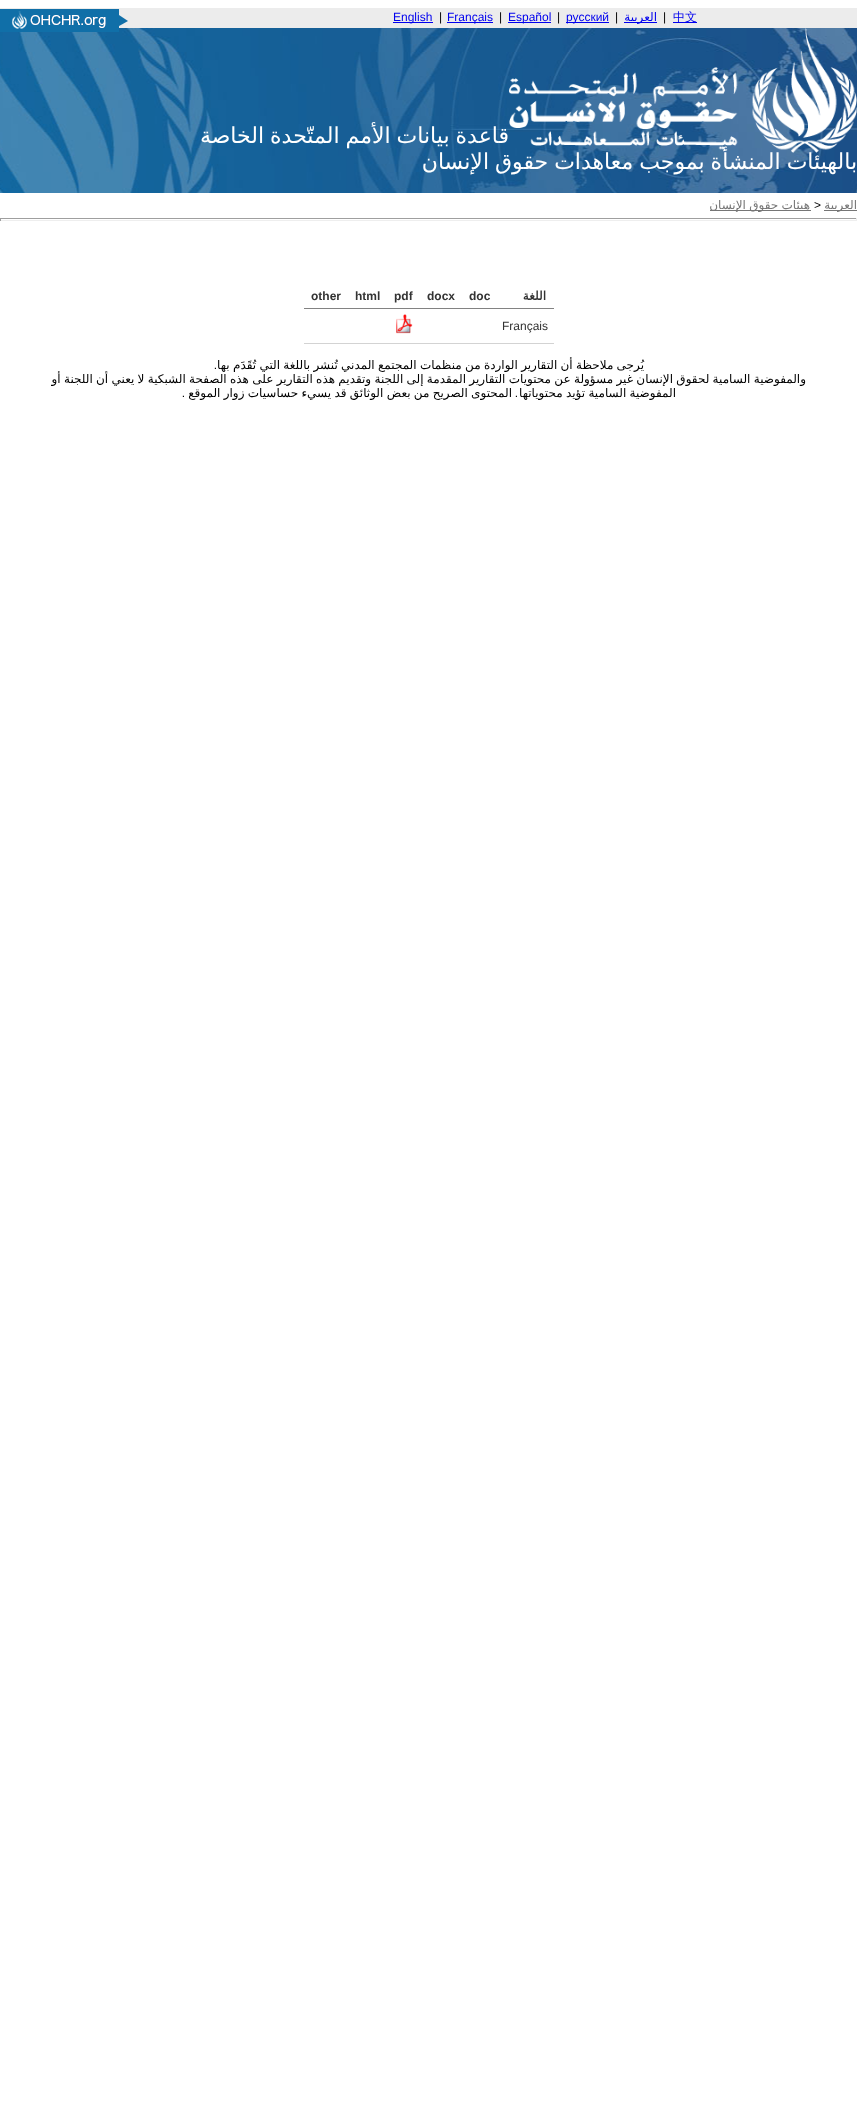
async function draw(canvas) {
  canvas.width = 857;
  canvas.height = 2112;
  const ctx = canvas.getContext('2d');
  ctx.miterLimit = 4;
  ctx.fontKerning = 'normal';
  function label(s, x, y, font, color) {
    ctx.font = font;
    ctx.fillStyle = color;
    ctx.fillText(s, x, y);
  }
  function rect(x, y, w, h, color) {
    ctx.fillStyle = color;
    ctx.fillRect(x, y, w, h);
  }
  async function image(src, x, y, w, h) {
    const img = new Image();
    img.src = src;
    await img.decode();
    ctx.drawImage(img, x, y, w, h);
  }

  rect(0, 0, 857, 2112, '#fff');
  rect(0, 8, 857, 20, '#ececec');
  rect(673, 22, 24, 1, '#00e');
  label('中文', 673, 21, '500 12px WenQuanYi Zen Hei', '#00e');
  ctx.letterSpacing = '-1px';
  label('|', 663, 21, '12px Liberation Sans', '#000');
  rect(624, 22, 33, 1, '#00e');
  ctx.letterSpacing = '0px';
  ctx.direction = 'rtl';
  label('العربية', 657, 21, '12px DejaVu Sans', '#00e');
  ctx.letterSpacing = '-1px';
  ctx.direction = 'ltr';
  label('|', 615, 21, '12px Liberation Sans', '#000');
  rect(566, 22, 43, 1, '#00e');
  ctx.letterSpacing = '0px';
  label('русский', 566, 21, '12px Liberation Sans', '#00e');
  ctx.letterSpacing = '-1px';
  label('|', 557, 21, '12px Liberation Sans', '#000');
  rect(508, 22, 43, 1, '#00e');
  ctx.letterSpacing = '0px';
  label('Español', 508, 21, '12px Liberation Sans', '#00e');
  ctx.letterSpacing = '-1px';
  label('|', 499, 21, '12px Liberation Sans', '#000');
  rect(447, 22, 46, 1, '#00e');
  ctx.letterSpacing = '0px';
  label('Français', 447, 21, '12px Liberation Sans', '#00e');
  ctx.letterSpacing = '-1px';
  label('|', 439, 21, '12px Liberation Sans', '#000');
  rect(393, 22, 40, 1, '#00e');
  ctx.letterSpacing = '0px';
  label('English', 393, 21, '12px Liberation Sans', '#00e');
  await image('assets/img2.png', 0, 28, 857, 165);
  await image('assets/img1.png', 0, 9, 128, 23);
  await image('assets/img3.png', 509, 28, 348, 125);
  ctx.wordSpacing = '-1px';
  ctx.direction = 'rtl';
  label('قاعدة بيانات الأمم المتّحدة الخاصة', 509, 143, '22px DejaVu Sans', '#fff');
  label('بالهيئات المنشأة بموجب معاهدات حقوق الإنسان', 857, 169, '22px DejaVu Sans', '#fff');
  rect(824, 210, 33, 1, '#767676');
  ctx.wordSpacing = '0px';
  label('العربية', 857, 209, '12px DejaVu Sans', '#767676');
  ctx.direction = 'ltr';
  label('>', 814, 209, '12px Liberation Sans', '#000');
  rect(710, 210, 101, 1, '#767676');
  ctx.wordSpacing = '-0.5px';
  ctx.direction = 'rtl';
  label('هيئات حقوق الإنسان', 810, 209, '12px DejaVu Sans', '#767676');
  rect(0, 218, 857, 1, '#9f9f9f');
  rect(856, 218, 1, 3, '#eee');
  rect(0, 220, 857, 1, '#eee');
  rect(0, 218, 1, 3, '#9f9f9f');
  rect(304, 308, 250, 1, '#828282');
  ctx.wordSpacing = '0px';
  label('اللغة', 546, 300, 'bold 12px DejaVu Sans', '#333');
  ctx.direction = 'ltr';
  label('doc', 469, 300, 'bold 12px Liberation Sans', '#333');
  label('docx', 427, 300, 'bold 12px Liberation Sans', '#333');
  label('pdf', 394, 300, 'bold 12px Liberation Sans', '#333');
  label('html', 355, 300, 'bold 12px Liberation Sans', '#333');
  label('other', 311, 300, 'bold 12px Liberation Sans', '#333');
  rect(304, 343, 250, 1, '#d3d3d3');
  label('Français', 502, 330, '12px Liberation Sans', '#333');
  await image('assets/img4.png', 396, 314, 17, 20);
  ctx.wordSpacing = '-0.5px';
  ctx.direction = 'rtl';
  label('يُرجى ملاحظة أن التقارير الواردة من منظمات المجتمع المدني تُنشر باللغة التي تُقَدَم بها', 644, 369, '12px DejaVu Sans', '#000');
  ctx.wordSpacing = '0px';
  label('.', 217, 369, '12px Liberation Sans', '#000');
  ctx.wordSpacing = '-0.5px';
  label('والمفوضية السامية لحقوق الإنسان غير مسؤولة عن محتويات التقارير المقدمة إلى اللجنة وتقديم هذه التقارير على هذه الصفحة الشبكية لا يعني أن اللجنة أو', 806, 383, '12px DejaVu Sans', '#000');
  label('المفوضية السامية تؤيد محتوياتها', 676, 397, '12px DejaVu Sans', '#000');
  ctx.wordSpacing = '0px';
  label('.', 518, 397, '12px Liberation Sans', '#000');
  ctx.wordSpacing = '-0.5px';
  label('المحتوى الصريح من بعض الوثائق قد يسيء حساسيات زوار الموقع', 512, 397, '12px DejaVu Sans', '#000');
  ctx.wordSpacing = '0px';
  label('.', 185, 397, '12px Liberation Sans', '#000');
}

draw(document.querySelector('canvas'));
